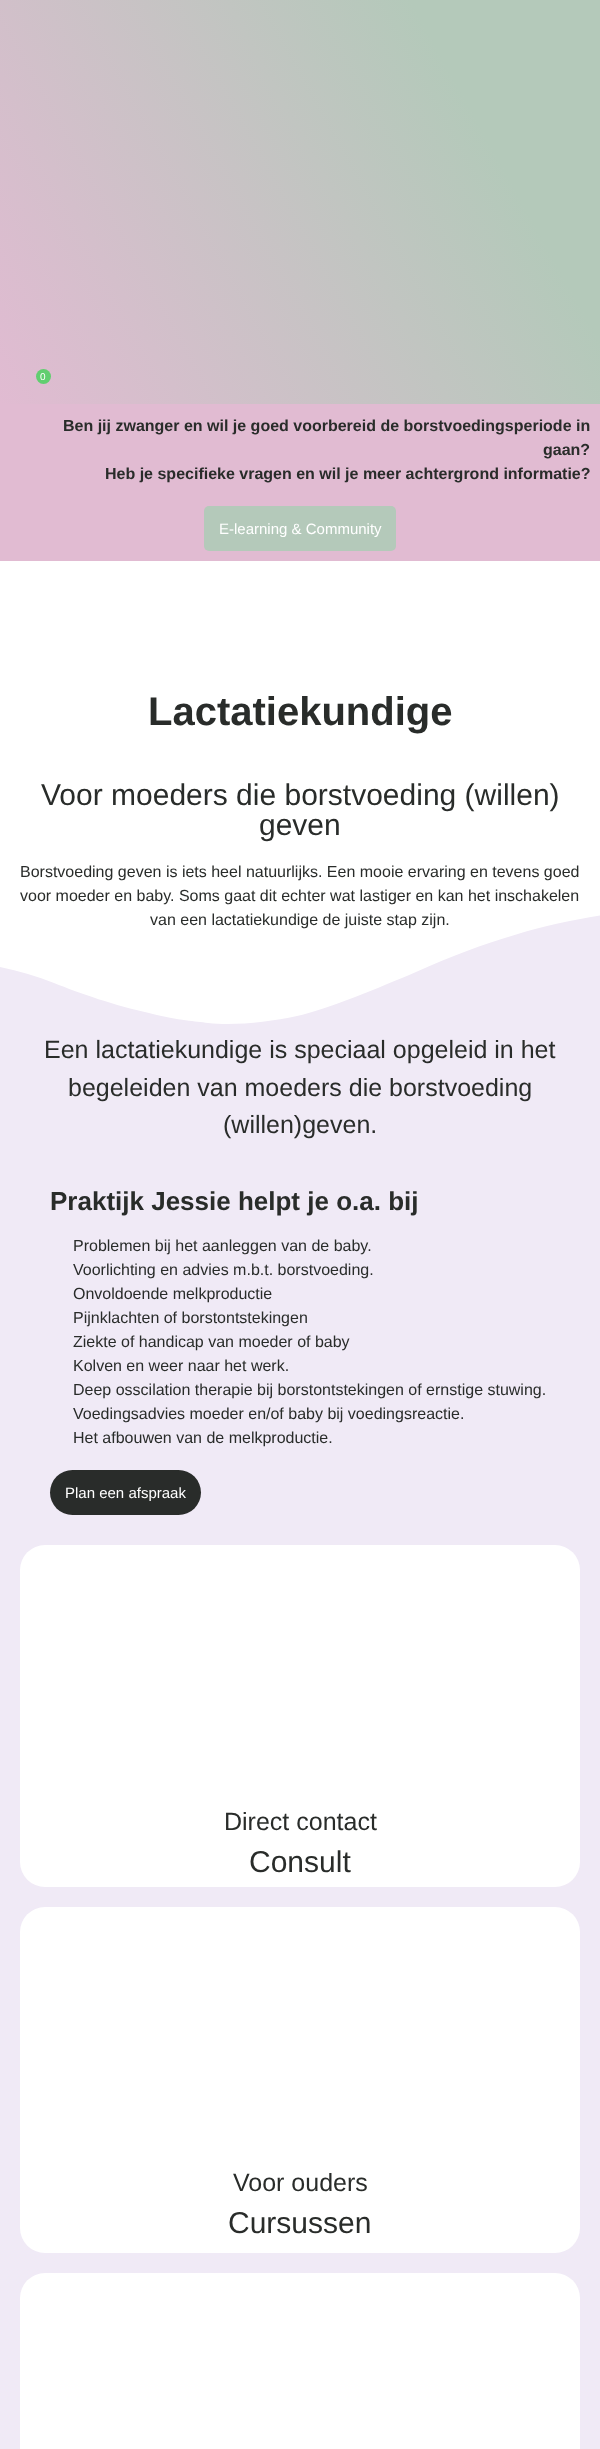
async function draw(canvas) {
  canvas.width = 600;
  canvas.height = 2449;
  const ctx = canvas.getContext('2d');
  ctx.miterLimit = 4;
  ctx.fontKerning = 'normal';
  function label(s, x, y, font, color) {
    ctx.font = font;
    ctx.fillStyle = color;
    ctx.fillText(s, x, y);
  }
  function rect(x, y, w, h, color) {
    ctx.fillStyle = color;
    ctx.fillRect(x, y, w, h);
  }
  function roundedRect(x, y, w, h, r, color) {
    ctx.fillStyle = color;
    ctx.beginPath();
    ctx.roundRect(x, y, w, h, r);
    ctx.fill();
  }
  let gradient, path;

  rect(0, 0, 600, 2449, '#fff');
  gradient = ctx.createLinearGradient(-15, 377, 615, 27);
  gradient.addColorStop(0, '#e1bbd2');
  gradient.addColorStop(0.77, '#b4c9ba');
  ctx.fillStyle = gradient;
  ctx.fillRect(0, 0, 600, 404);
  ctx.fillStyle = '#61ce70';
  ctx.beginPath();
  ctx.arc(43.5, 376.5, 7.5, 0, 2 * Math.PI);
  ctx.fill();
  label('0', 40, 380, '10px Liberation Sans', '#fff');
  rect(0, 404, 600, 157, '#e1bbd2');
  label('Ben jij zwanger en wil je goed voorbereid de borstvoedingsperiode in', 63, 431, 'bold 16px Liberation Sans', '#292c2a');
  label('gaan?', 543, 455, 'bold 16px Liberation Sans', '#292c2a');
  label('Heb je specifieke vragen en wil je meer achtergrond informatie?', 105, 479, 'bold 16px Liberation Sans', '#292c2a');
  roundedRect(204, 506, 192, 45, 5, '#b4c9ba');
  label('E-learning & Community', 219, 534, '15px Liberation Sans', '#fff');
  label('Lactatiekundige', 148, 725, 'bold 40px Liberation Sans', '#292c2a');
  label('Voor moeders die borstvoeding (willen)', 41, 805, '30px Liberation Sans', '#292c2a');
  label('geven', 259, 835, '30px Liberation Sans', '#292c2a');
  label('Borstvoeding geven is iets heel natuurlijks. Een mooie ervaring en tevens goed', 20, 877, '16px Liberation Sans', '#292c2a');
  label('voor moeder en baby. Soms gaat dit echter wat lastiger en kan het inschakelen', 20, 901, '16px Liberation Sans', '#292c2a');
  ctx.save();
  ctx.beginPath();
  ctx.rect(0, 906, 600, 124);
  ctx.clip();
  ctx.fillStyle = '#f0eaf6';
  path = new Path2D('M208 1023C234 1026 269 1022 297 1016C325 1010 381 987 416 972C506 932 574 917 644 910C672 908 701 906 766 913C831 921 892 945 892 945V1031H-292V993C-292 993-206 953-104 955C-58 956 6 964 54 983C79 993 116 1006 149 1013C181 1021 195 1021 208 1023Z');
  ctx.fill(path);
  ctx.restore();
  label('van een lactatiekundige de juiste stap zijn.', 150, 925, '16px Liberation Sans', '#292c2a');
  rect(0, 1030, 600, 1419, '#f0eaf6');
  label('Een lactatiekundige is speciaal opgeleid in het', 44, 1058, '25px Liberation Sans', '#292c2a');
  label('begeleiden van moeders die borstvoeding', 68, 1096, '25px Liberation Sans', '#292c2a');
  label('(willen)geven.', 223, 1133, '25px Liberation Sans', '#292c2a');
  label('Praktijk Jessie helpt je o.a. bij', 50, 1210, 'bold 26px Liberation Sans', '#292c2a');
  label('Problemen bij het aanleggen van de baby.', 73, 1251, '16px Liberation Sans', '#292c2a');
  label('Voorlichting en advies m.b.t. borstvoeding.', 73, 1275, '16px Liberation Sans', '#292c2a');
  label('Onvoldoende melkproductie', 73, 1299, '16px Liberation Sans', '#292c2a');
  label('Pijnklachten of borstontstekingen', 73, 1323, '16px Liberation Sans', '#292c2a');
  label('Ziekte of handicap van moeder of baby', 73, 1347, '16px Liberation Sans', '#292c2a');
  label('Kolven en weer naar het werk.', 73, 1371, '16px Liberation Sans', '#292c2a');
  label('Deep osscilation therapie bij borstontstekingen of ernstige stuwing.', 73, 1395, '16px Liberation Sans', '#292c2a');
  label('Voedingsadvies moeder en/of baby bij voedingsreactie.', 73, 1419, '16px Liberation Sans', '#292c2a');
  label('Het afbouwen van de melkproductie.', 73, 1443, '16px Liberation Sans', '#292c2a');
  roundedRect(50, 1470, 151, 45, 22.5, '#292c2a');
  label('Plan een afspraak', 65, 1498, '15px Liberation Sans', '#fff');
  roundedRect(20, 1545, 560, 342, 25, '#fff');
  label('Direct contact', 224, 1830, '25px Liberation Sans', '#292c2a');
  label('Consult', 249, 1872, '30px Liberation Sans', '#292c2a');
  roundedRect(20, 1907, 560, 346, 25, '#fff');
  label('Voor ouders', 233, 2191, '25px Liberation Sans', '#292c2a');
  label('Cursussen', 228, 2233, '30px Liberation Sans', '#292c2a');
  roundedRect(20, 2273, 560, 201, 25, '#fff');
}

draw(document.querySelector('canvas'));
